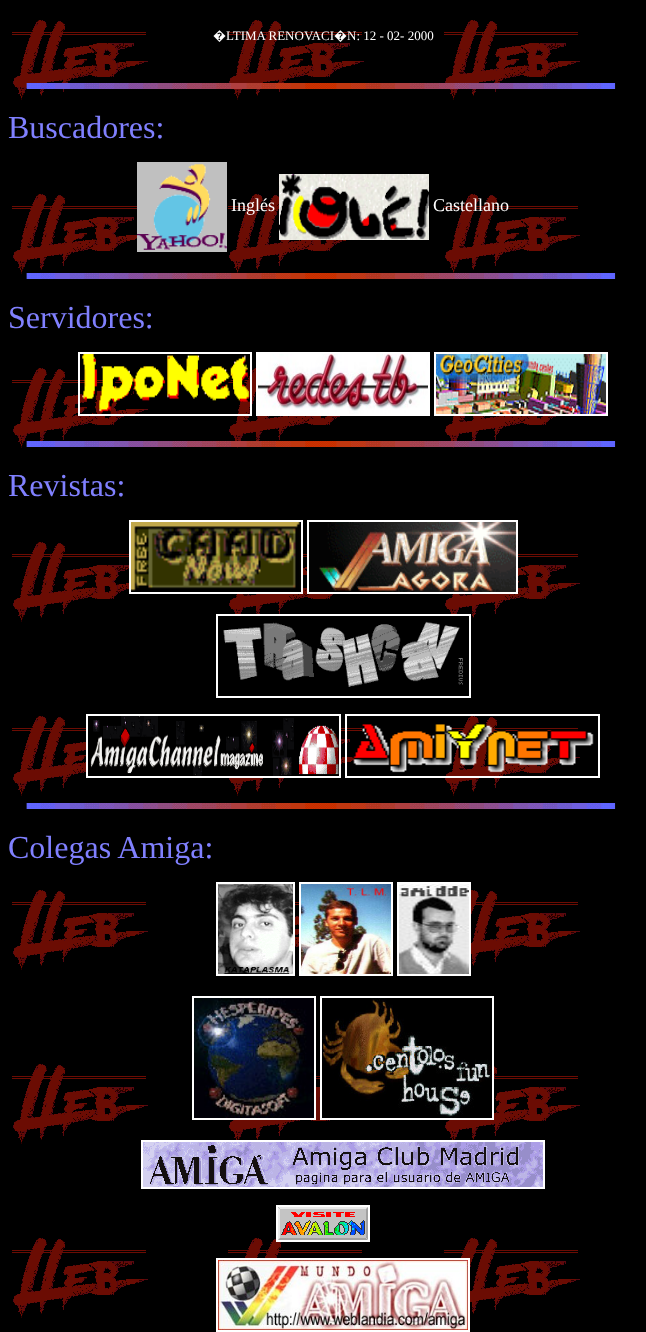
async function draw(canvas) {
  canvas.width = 646;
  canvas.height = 1332;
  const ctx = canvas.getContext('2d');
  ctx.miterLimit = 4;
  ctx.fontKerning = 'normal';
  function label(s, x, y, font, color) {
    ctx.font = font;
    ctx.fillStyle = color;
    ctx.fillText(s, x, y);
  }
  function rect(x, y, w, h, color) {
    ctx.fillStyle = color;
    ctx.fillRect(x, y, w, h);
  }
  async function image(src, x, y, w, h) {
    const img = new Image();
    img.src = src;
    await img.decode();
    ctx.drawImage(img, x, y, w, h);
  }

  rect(0, 0, 646, 1332, '#fff');
  await image('assets/img1.png', 0, 0, 646, 1332);
  label('�', 213, 40, '13px Noto Sans', '#fff');
  label('LTIMA RENOVACI', 226, 40, '13px Liberation Serif', '#fff');
  label('�', 334, 40, '13px Noto Sans', '#fff');
  label('N: 12 - 02- 2000', 347, 40, '13px Liberation Serif', '#fff');
  await image('assets/img2.png', 26, 83, 590, 6);
  label('Buscadores:', 8, 138, '32px Liberation Serif', '#8080ff');
  await image('assets/img3.png', 137, 162, 90, 90);
  label('Inglés', 231, 211, '18px Liberation Serif', '#fff');
  await image('assets/img4.png', 279, 174, 150, 66);
  label('Castellano', 433, 211, '18px Liberation Serif', '#fff');
  await image('assets/img5.png', 26, 273, 590, 6);
  label('Servidores:', 8, 328, '32px Liberation Serif', '#8080ff');
  ctx.strokeStyle = '#fff';
  ctx.lineWidth = 2;
  ctx.strokeRect(79, 353, 172, 62);
  ctx.strokeRect(257, 353, 172, 62);
  ctx.strokeRect(435, 353, 172, 62);
  await image('assets/img6.png', 82, 354, 168, 60);
  await image('assets/img7.png', 258, 354, 170, 60);
  await image('assets/img8.png', 436, 354, 170, 60);
  await image('assets/img5.png', 26, 441, 590, 6);
  label('Revistas:', 8, 496, '32px Liberation Serif', '#8080ff');
  ctx.strokeRect(130, 521, 172, 72);
  ctx.strokeRect(308, 521, 209, 72);
  await image('assets/img9.png', 131, 522, 170, 70);
  await image('assets/img10.png', 309, 522, 207, 70);
  ctx.strokeRect(217, 615, 253, 82);
  await image('assets/img11.png', 223, 616, 240, 71);
  ctx.strokeRect(87, 715, 253, 62);
  ctx.strokeRect(346, 715, 253, 62);
  await image('assets/img12.png', 88, 716, 251, 60);
  await image('assets/img13.png', 351, 722, 243, 51);
  await image('assets/img5.png', 26, 803, 590, 6);
  label('Colegas Amiga:', 8, 858, '32px Liberation Serif', '#8080ff');
  ctx.strokeRect(217, 883, 77, 92);
  ctx.strokeRect(300, 883, 92, 92);
  ctx.strokeRect(398, 883, 72, 92);
  await image('assets/img14.png', 218, 884, 75, 90);
  await image('assets/img15.png', 301, 884, 90, 90);
  await image('assets/img16.png', 399, 884, 70, 90);
  ctx.strokeRect(193, 997, 122, 122);
  ctx.strokeRect(321, 997, 172, 122);
  await image('assets/img17.png', 194, 998, 120, 120);
  await image('assets/img18.png', 322, 998, 170, 120);
  ctx.strokeRect(142, 1141, 402, 47);
  await image('assets/img19.png', 143, 1142, 400, 45);
  ctx.strokeRect(277, 1206, 92, 35);
  await image('assets/img20.png', 278, 1207, 90, 33);
  ctx.strokeRect(217, 1259, 252, 72);
  await image('assets/img21.png', 218, 1260, 250, 70);
}

draw(document.querySelector('canvas'));
